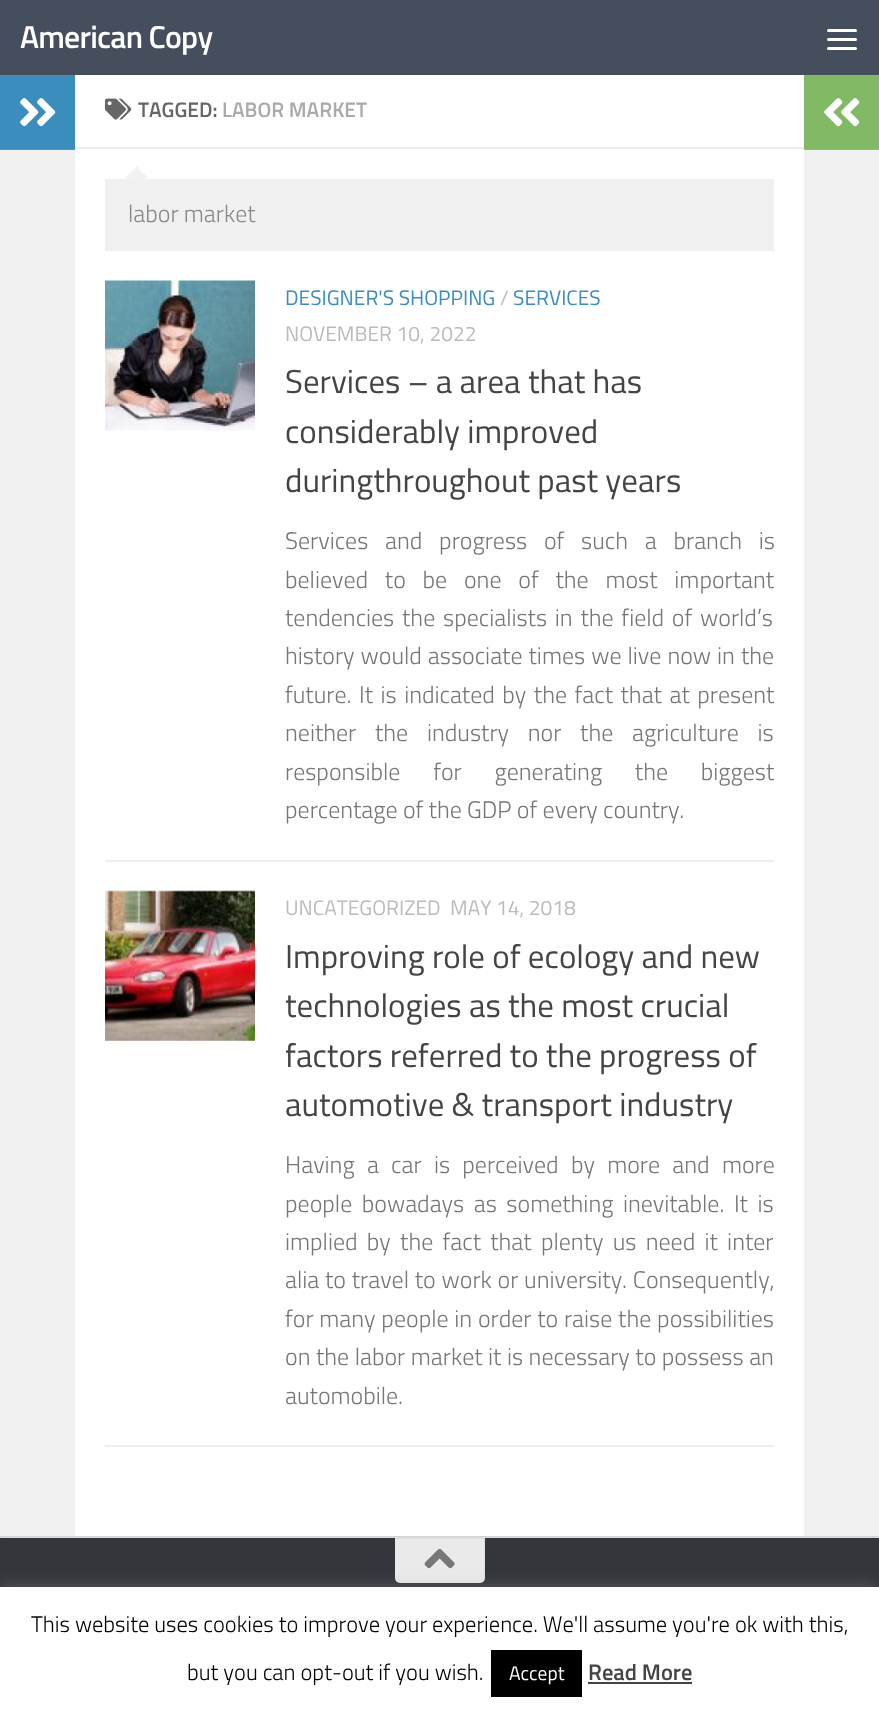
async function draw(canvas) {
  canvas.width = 879;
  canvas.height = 1714;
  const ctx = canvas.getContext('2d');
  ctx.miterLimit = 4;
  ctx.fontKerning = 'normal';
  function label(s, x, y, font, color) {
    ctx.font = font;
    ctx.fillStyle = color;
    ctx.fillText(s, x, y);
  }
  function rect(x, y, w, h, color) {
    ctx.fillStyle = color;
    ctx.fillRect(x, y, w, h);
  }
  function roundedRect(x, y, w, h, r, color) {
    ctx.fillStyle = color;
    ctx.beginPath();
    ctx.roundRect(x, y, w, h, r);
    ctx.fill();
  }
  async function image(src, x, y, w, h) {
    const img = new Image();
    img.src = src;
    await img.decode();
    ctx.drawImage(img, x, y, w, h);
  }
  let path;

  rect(0, 0, 879, 1714, '#eaeaea');
  ctx.fillStyle = '#0000001a';
  ctx.filter = 'blur(1px)';
  ctx.beginPath();
  ctx.rect(0, 77, 879, 1461);
  ctx.fill();
  ctx.filter = 'none';
  rect(0, 0, 879, 75, '#454e5c');
  ctx.letterSpacing = '-0.75px';
  label('American Copy', 20, 48, '600 31.75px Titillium', '#fff');
  roundedRect(827, 29, 30, 3, 1.5, '#fff');
  roundedRect(827, 38, 30, 3, 1.5, '#fff');
  roundedRect(827, 47, 30, 3, 1.5, '#fff');
  rect(75, 75, 729, 1461, '#fff');
  rect(0, 151, 75, 1385, '#f0f0f0');
  rect(0, 150, 75, 1, '#f2f2f2');
  rect(0, 75, 75, 74, '#3b8dbd');
  rect(0, 149, 75, 1, '#4f98c4');
  await image('assets/img1.png', 20, 98, 36, 29);
  rect(75, 147, 729, 2, '#eee');
  await image('assets/img2.png', 105, 98, 27, 22);
  ctx.letterSpacing = '0px';
  label('TAGGED:', 138, 117, '600 21px Titillium', '#666');
  label('LABOR MARKET', 222, 117, '600 21px Titillium', '#aaa');
  rect(105, 179, 669, 72, '#f0f0f0');
  ctx.fillStyle = '#f1f1f1';
  path = new Path2D('M148.5 178.5H124.5L136.5 166.5Z');
  ctx.fill(path);
  path = new Path2D('M145.5 180H127.5L136.5 171Z');
  ctx.fill(path);
  label('labor market', 128, 222, '300 24px Titillium', '#888');
  rect(105, 860, 669, 2, '#eee');
  await image('assets/img3.png', 105, 280, 150, 151);
  label('DESIGNER\'S SHOPPING', 285, 305, '21px Titillium', '#3b8dbd');
  label('/', 500, 305, '21px Titillium', '#bbb');
  label('SERVICES', 513, 305, '21px Titillium', '#3b8dbd');
  label('NOVEMBER 10, 2022', 285, 341, '21px Titillium', '#bbb');
  label('Services – a area that has', 285, 393, '33px Titillium', '#444');
  label('considerably improved', 285, 443, '33px Titillium', '#444');
  label('duringthroughout past years', 285, 492, '33px Titillium', '#444');
  ctx.wordSpacing = '11.5px';
  label('Services and progress of such a branch is', 285, 549, '300 24px Titillium', '#767676');
  label('believed to be one of the most important', 285, 588, '300 24px Titillium', '#767676');
  ctx.wordSpacing = '2.5px';
  label('tendencies the specialists in the field of world’s', 285, 626, '300 24px Titillium', '#767676');
  ctx.wordSpacing = '0.75px';
  label('history would associate times we live now in the', 285, 664, '300 24px Titillium', '#767676');
  ctx.wordSpacing = '2.25px';
  label('future. It is indicated by the fact that at present', 285, 703, '300 24px Titillium', '#767676');
  ctx.wordSpacing = '13.5px';
  label('neither the industry nor the agriculture is', 285, 741, '300 24px Titillium', '#767676');
  ctx.wordSpacing = '27.5px';
  label('responsible for generating the biggest', 285, 780, '300 24px Titillium', '#767676');
  ctx.wordSpacing = '0px';
  label('percentage of the GDP of every country.', 285, 818, '300 24px Titillium', '#767676');
  rect(105, 1445, 669, 2, '#eee');
  await image('assets/img4.png', 105, 890, 150, 151);
  label('UNCATEGORIZED', 285, 915, '21px Titillium', '#bbb');
  label('MAY 14, 2018', 450, 915, '21px Titillium', '#bbb');
  label('Improving role of ecology and new', 285, 968, '33px Titillium', '#444');
  label('technologies as the most crucial', 285, 1017, '33px Titillium', '#444');
  label('factors referred to the progress of', 285, 1067, '33px Titillium', '#444');
  label('automotive & transport industry', 285, 1116, '33px Titillium', '#444');
  ctx.wordSpacing = '7px';
  label('Having a car is perceived by more and more', 285, 1173, '300 24px Titillium', '#767676');
  ctx.wordSpacing = '4.25px';
  label('people bowadays as something inevitable. It is', 285, 1212, '300 24px Titillium', '#767676');
  ctx.wordSpacing = '4px';
  label('implied by the fact that plenty us need it inter', 285, 1250, '300 24px Titillium', '#767676');
  ctx.wordSpacing = '0.5px';
  label('alia to travel to work or university. Consequently,', 285, 1288, '300 24px Titillium', '#767676');
  label('for many people in order to raise the possibilities', 285, 1327, '300 24px Titillium', '#767676');
  ctx.wordSpacing = '0.25px';
  label('on the labor market it is necessary to possess an', 285, 1365, '300 24px Titillium', '#767676');
  ctx.wordSpacing = '0px';
  label('automobile.', 285, 1404, '300 24px Titillium', '#767676');
  rect(804, 75, 75, 74, '#82b965');
  rect(804, 149, 75, 1, '#8fc074');
  await image('assets/img5.png', 824, 98, 36, 29);
  rect(804, 151, 75, 1385, '#f0f0f0');
  rect(804, 150, 75, 1, '#f2f2f2');
  rect(0, 1538, 879, 49, '#33363b');
  ctx.fillStyle = '#eaeaea';
  ctx.beginPath();
  ctx.roundRect(395, 1538, 90, 45, [0, 0, 5, 5]);
  ctx.fill();
  ctx.fillStyle = '#0000000d';
  path = new Path2D('M395 1538V1539H484V1581C485 1580 485 1579 485 1578V1538Z');
  ctx.fill(path);
  await image('assets/img6.png', 424, 1548, 31, 21);
  ctx.fillStyle = '#acabab4d';
  ctx.filter = 'blur(7.5px)';
  ctx.beginPath();
  ctx.rect(0, 1586, 879, 127);
  ctx.fill();
  ctx.filter = 'none';
  rect(0, 1587, 879, 127, '#fff');
  label('This website uses cookies to improve your experience. We\'ll assume you\'re ok with this,', 31, 1632, '300 22.5px Titillium', '#000');
  label('but you can opt-out if you wish.', 187, 1680, '300 22.5px Titillium', '#000');
  rect(491, 1650, 91, 47, '#000');
  label('Accept', 509, 1680, '19.5px Titillium', '#fff');
  label('Read More', 588, 1680, '600 22.5px Titillium', '#444');
  rect(588, 1682, 104, 2, '#444');
}

draw(document.querySelector('canvas'));
